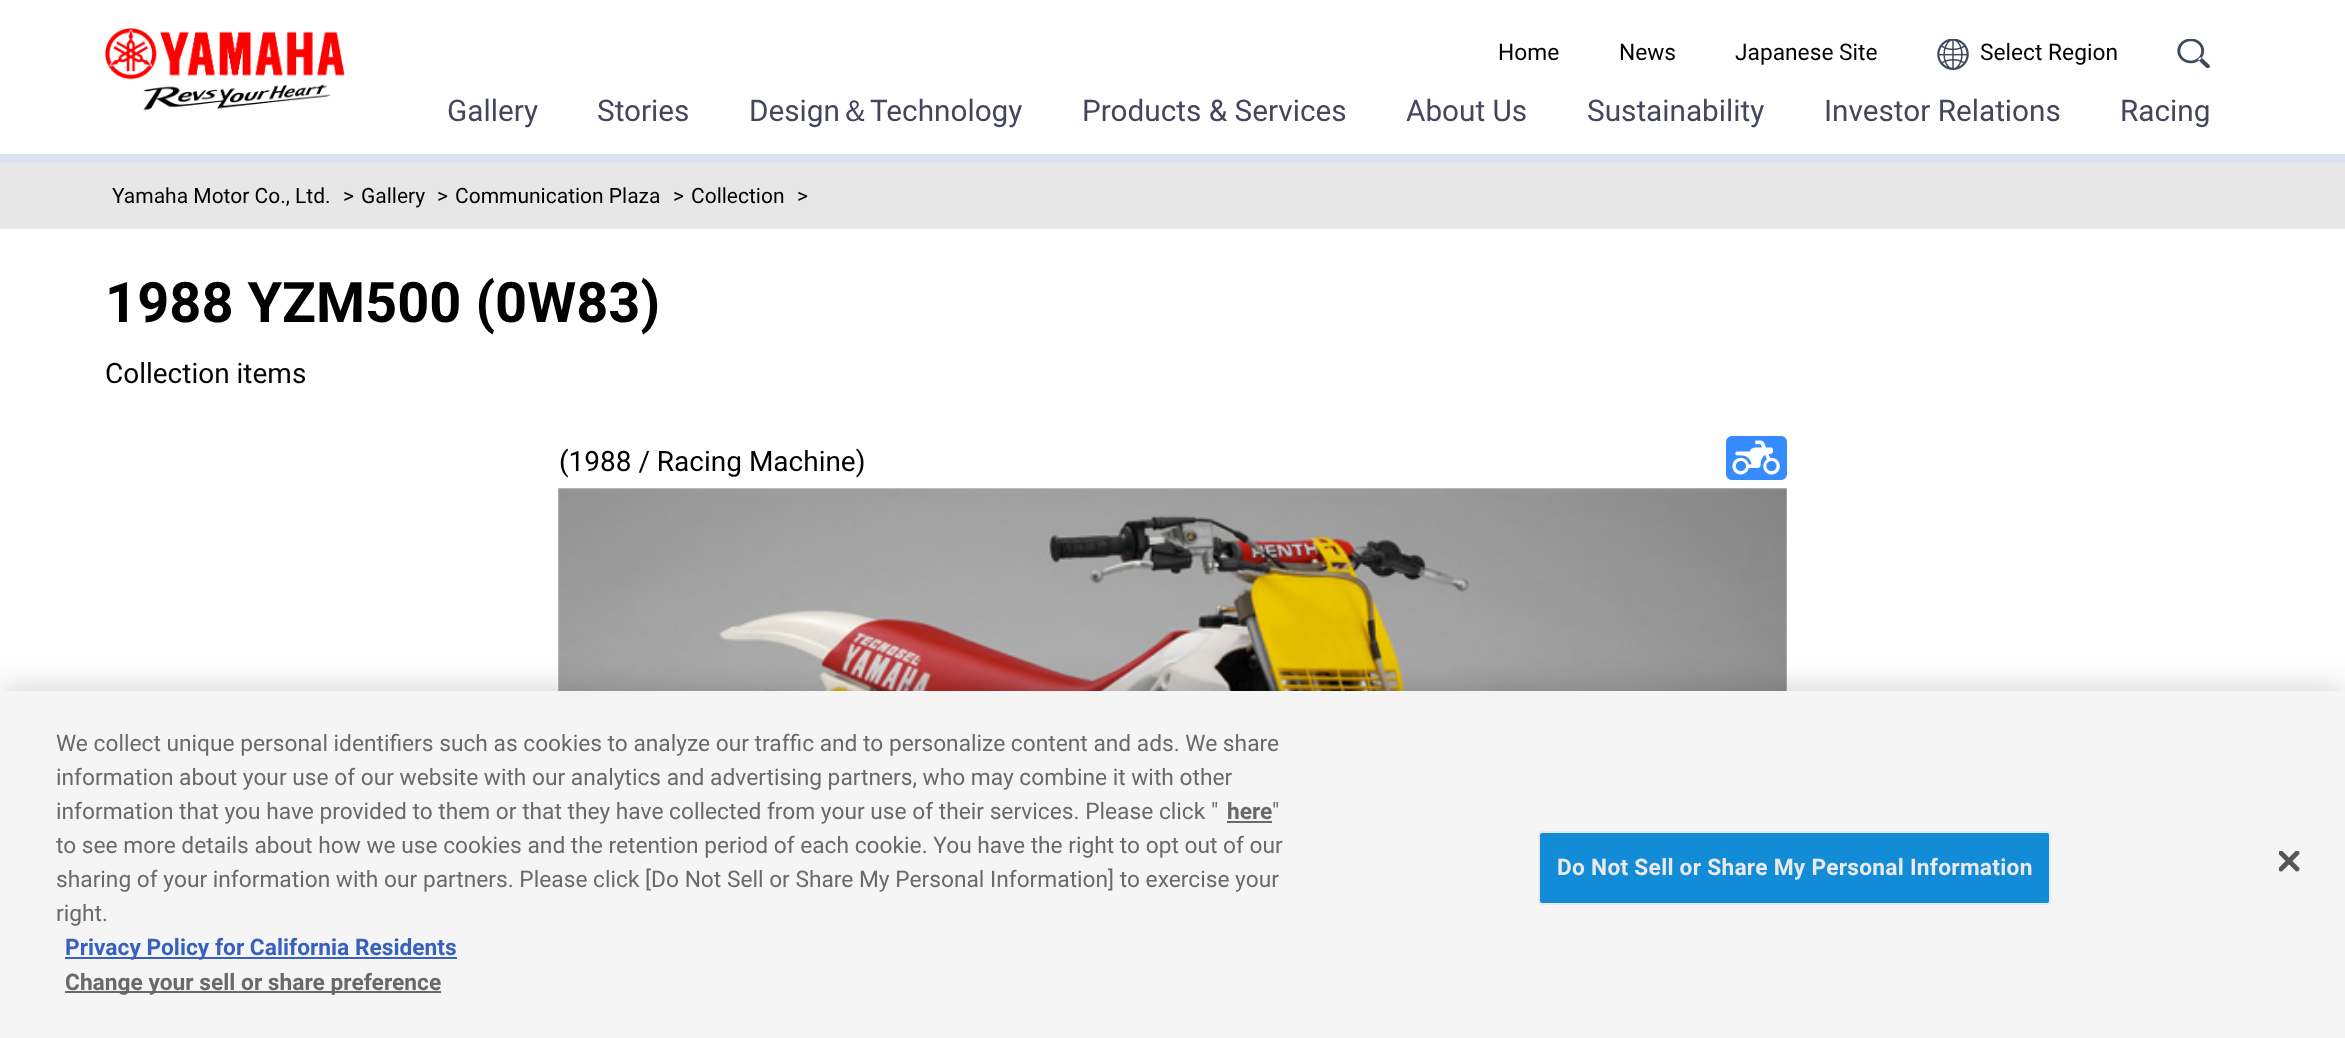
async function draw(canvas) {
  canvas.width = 2345;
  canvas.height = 1038;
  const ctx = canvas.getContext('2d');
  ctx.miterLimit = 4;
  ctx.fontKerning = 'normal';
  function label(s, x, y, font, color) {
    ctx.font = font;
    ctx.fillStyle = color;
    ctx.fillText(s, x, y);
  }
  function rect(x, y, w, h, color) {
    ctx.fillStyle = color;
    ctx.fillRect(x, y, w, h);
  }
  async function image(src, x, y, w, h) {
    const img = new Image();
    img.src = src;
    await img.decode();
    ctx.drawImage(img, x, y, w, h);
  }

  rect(0, 0, 2345, 1038, '#fff');
  await image('assets/img1.png', 105, 28, 240, 83);
  label('Home', 1498, 60, '22.75px Roboto', '#000');
  label('News', 1619, 60, '22.75px Roboto', '#000');
  label('Japanese Site', 1735, 60, '22.75px Roboto', '#000');
  await image('assets/img2.png', 1937, 39, 32, 31);
  label('Select Region', 1980, 60, '22.75px Roboto', '#000');
  await image('assets/img3.png', 2177, 39, 33, 29);
  label('Gallery', 447, 121, '29.75px Roboto', '#44465c');
  label('Stories', 597, 121, '29.75px Roboto', '#44465c');
  label('Design', 749, 121, '29.75px Roboto', '#44465c');
  label('＆', 840, 121, '500 29.75px WenQuanYi Zen Hei', '#44465c');
  label('Technology', 870, 121, '29.75px Roboto', '#44465c');
  label('Products & Services', 1082, 121, '29.75px Roboto', '#44465c');
  label('About Us', 1406, 121, '29.75px Roboto', '#44465c');
  label('Sustainability', 1587, 121, '29.75px Roboto', '#44465c');
  label('Investor Relations', 1824, 121, '29.75px Roboto', '#44465c');
  label('Racing', 2120, 121, '29.75px Roboto', '#44465c');
  rect(0, 154, 2345, 9, '#dce3ee');
  rect(0, 163, 2345, 66, '#e7e7e7');
  label('Yamaha Motor Co., Ltd.', 112, 203, '21px Roboto', '#000');
  label('>', 343, 203, '21px Roboto', '#000');
  label('Gallery', 361, 203, '21px Roboto', '#000');
  label('>', 437, 203, '21px Roboto', '#000');
  label('Communication Plaza', 455, 203, '21px Roboto', '#000');
  label('>', 673, 203, '21px Roboto', '#000');
  label('Collection', 691, 203, '21px Roboto', '#000');
  label('>', 797, 203, '21px Roboto', '#000');
  label('1988 YZM500 (0W83)', 105, 322, 'bold 56px Roboto', '#000');
  label('Collection items', 105, 383, '28px Roboto', '#000');
  label('(1988 / Racing Machine)', 559, 471, '28px Roboto', '#000');
  await image('assets/img4.png', 1726, 436, 61, 44);
  await image('assets/img5.png', 558, 488, 1229, 203);
  ctx.fillStyle = '#00000033';
  ctx.filter = 'blur(16px)';
  ctx.beginPath();
  ctx.rect(0, 691, 2345, 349);
  ctx.fill();
  ctx.filter = 'none';
  rect(0, 691, 2345, 347, '#f5f5f5');
  label('We collect unique personal identifiers such as cookies to analyze our traffic and to personalize content and ads. We share', 56, 751, '22.75px Roboto', '#696969');
  label('information about your use of our website with our analytics and advertising partners, who may combine it with other', 56, 785, '22.75px Roboto', '#696969');
  label('information that you have provided to them or that they have collected from your use of their services. Please click "', 56, 819, '22.75px Roboto', '#696969');
  label('here', 1227, 819, 'bold 22.75px Roboto', '#696969');
  rect(1227, 821, 45, 2, '#696969');
  label('"', 1272, 819, '22.75px Roboto', '#696969');
  label('to see more details about how we use cookies and the retention period of each cookie. You have the right to opt out of our', 56, 853, '22.75px Roboto', '#696969');
  label('sharing of your information with our partners. Please click [Do Not Sell or Share My Personal Information] to exercise your', 56, 887, '22.75px Roboto', '#696969');
  label('right.', 56, 921, '22.75px Roboto', '#696969');
  rect(65, 957, 392, 2, '#3860be');
  label('Privacy Policy for California Residents', 65, 955, 'bold 22.75px Roboto', '#3860be');
  rect(65, 991, 376, 2, '#696969');
  label('Change your sell or share preference', 65, 990, 'bold 22.75px Roboto', '#696969');
  ctx.fillStyle = '#128cd6';
  ctx.beginPath();
  ctx.roundRect(1539, 832, 511, 72, 3);
  ctx.fill();
  ctx.strokeStyle = '#e9e9e9';
  ctx.lineWidth = 2;
  ctx.stroke();
  ctx.letterSpacing = '0.25px';
  label('Do Not Sell or Share My Personal Information', 1557, 875, 'bold 22.75px Roboto', '#e9e9e9');
  await image('assets/img6.png', 2279, 851, 21, 21);
}

draw(document.querySelector('canvas'));
